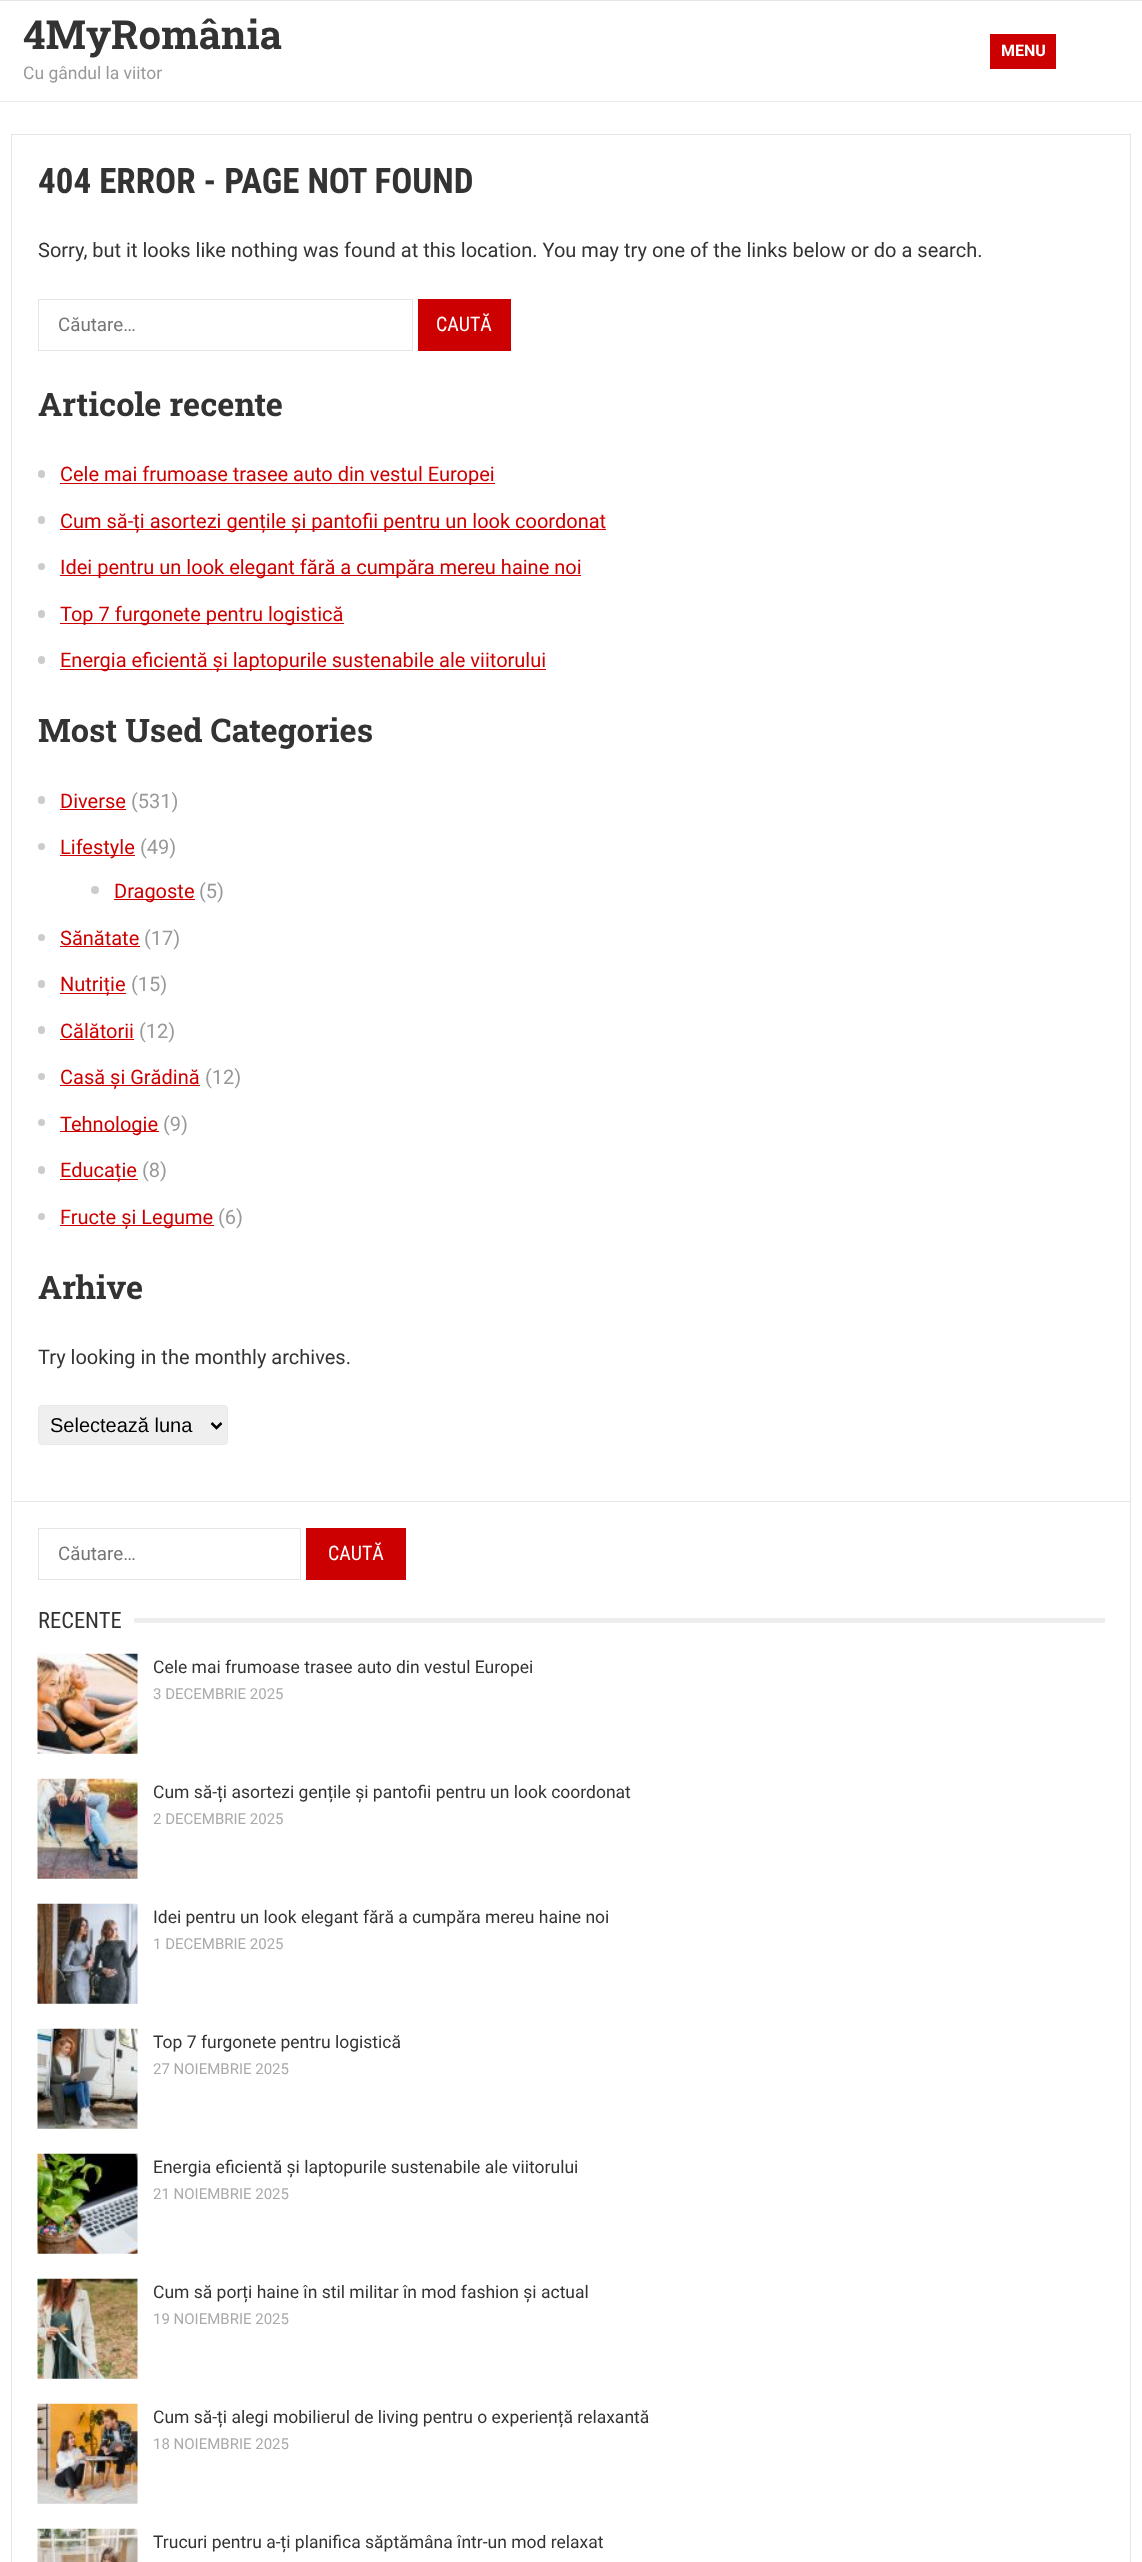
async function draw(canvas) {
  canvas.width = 1142;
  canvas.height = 2562;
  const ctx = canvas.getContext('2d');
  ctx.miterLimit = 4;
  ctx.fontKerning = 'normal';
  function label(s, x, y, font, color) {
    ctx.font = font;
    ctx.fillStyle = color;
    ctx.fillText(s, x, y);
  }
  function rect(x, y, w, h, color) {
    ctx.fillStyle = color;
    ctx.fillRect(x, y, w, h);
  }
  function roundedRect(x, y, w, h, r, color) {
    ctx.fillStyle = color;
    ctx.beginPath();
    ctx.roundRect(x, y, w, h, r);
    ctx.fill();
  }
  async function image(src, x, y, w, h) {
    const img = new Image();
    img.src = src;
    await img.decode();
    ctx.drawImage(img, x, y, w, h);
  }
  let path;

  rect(0, 0, 1142, 2562, '#fff');
  rect(0, 101, 1142, 1, '#e9e9e9');
  rect(0, 0, 1142, 1, '#e5e5e5');
  label('4MyRomânia', 23, 49, 'bold 40px Roboto Slab', '#333');
  label('Cu gândul la viitor', 23, 79, '17.5px Roboto', '#999');
  rect(990, 34, 66, 35, '#c00');
  label('MENU', 1001, 56, 'bold 16px Roboto', '#fff');
  rect(11, 134, 1120, 1, '#e5e5e5');
  rect(1130, 134, 1, 2428, '#e5e5e5');
  rect(11, 134, 1, 2428, '#e5e5e5');
  label('404 ERROR - PAGE NOT FOUND', 38, 193, 'bold 35px Roboto Condensed', '#333');
  label('Sorry, but it looks like nothing was found at this location. You may try one of the links below or do a search.', 38, 257, '20px Roboto', '#333');
  ctx.strokeStyle = '#e5e5e5';
  ctx.strokeRect(38.5, 299.5, 374, 51);
  label('Căutare…', 58, 331, '18.75px Roboto', '#757575');
  rect(418, 299, 93, 52, '#c00');
  label('CAUTĂ', 436, 331, '20px Roboto Condensed', '#fff');
  label('Articole recente', 38, 416, 'bold 32.5px Roboto Slab', '#333');
  roundedRect(38, 470, 7, 8, 3.5, '#ccc');
  rect(60, 483, 435, 1, '#c00');
  label('Cele mai frumoase trasee auto din vestul Europei', 60, 481, '20px Roboto', '#c00');
  roundedRect(38, 516, 7, 8, 3.5, '#ccc');
  rect(60, 529, 546, 1, '#c00');
  label('Cum să-ți asortezi gențile și pantofii pentru un look coordonat', 60, 528, '20px Roboto', '#c00');
  ctx.fillStyle = '#ccc';
  ctx.beginPath();
  ctx.arc(41.5, 566.5, 3.5, 0, 2 * Math.PI);
  ctx.fill();
  rect(60, 575, 521, 1, '#c00');
  label('Idei pentru un look elegant fără a cumpăra mereu haine noi', 60, 574, '20px Roboto', '#c00');
  roundedRect(38, 610, 7, 8, 3.5, '#ccc');
  rect(60, 623, 284, 1, '#c00');
  label('Top 7 furgonete pentru logistică', 60, 621, '20px Roboto', '#c00');
  roundedRect(38, 656, 7, 8, 3.5, '#ccc');
  rect(60, 669, 486, 1, '#c00');
  label('Energia eficientă și laptopurile sustenabile ale viitorului', 60, 667, '20px Roboto', '#c00');
  label('Most Used Categories', 38, 742, 'bold 32.5px Roboto Slab', '#333');
  roundedRect(38, 796, 7, 8, 3.5, '#ccc');
  label('Diverse', 60, 808, '20px Roboto', '#c00');
  rect(60, 809, 66, 1, '#c00');
  label('(531)', 131, 808, '20px Roboto', '#999');
  ctx.fillStyle = '#ccc';
  ctx.beginPath();
  ctx.arc(41.5, 846.5, 3.5, 0, 2 * Math.PI);
  ctx.fill();
  rect(60, 855, 75, 1, '#c00');
  label('Lifestyle', 60, 854, '20px Roboto', '#c00');
  label('(49)', 140, 854, '20px Roboto', '#999');
  ctx.fillStyle = '#ccc';
  ctx.beginPath();
  ctx.arc(95, 890, 4, 0, 2 * Math.PI);
  ctx.fill();
  rect(114, 899, 81, 1, '#c00');
  label('Dragoste', 114, 898, '20px Roboto', '#c00');
  label('(5)', 199, 898, '20px Roboto', '#999');
  ctx.fillStyle = '#ccc';
  ctx.beginPath();
  ctx.arc(41.5, 937.5, 3.5, 0, 2 * Math.PI);
  ctx.fill();
  label('Sănătate', 60, 945, '20px Roboto', '#c00');
  rect(60, 946, 80, 1, '#c00');
  label('(17)', 144, 945, '20px Roboto', '#999');
  roundedRect(38, 980, 7, 8, 3.5, '#ccc');
  rect(60, 993, 66, 1, '#c00');
  label('Nutriție', 60, 991, '20px Roboto', '#c00');
  label('(15)', 131, 991, '20px Roboto', '#999');
  roundedRect(38, 1026, 7, 8, 3.5, '#ccc');
  label('Călătorii', 60, 1038, '20px Roboto', '#c00');
  rect(60, 1039, 74, 1, '#c00');
  label('(12)', 139, 1038, '20px Roboto', '#999');
  ctx.fillStyle = '#ccc';
  ctx.beginPath();
  ctx.arc(41.5, 1076.5, 3.5, 0, 2 * Math.PI);
  ctx.fill();
  rect(60, 1085, 140, 1, '#c00');
  label('Casă și Grădină', 60, 1084, '20px Roboto', '#c00');
  label('(12)', 205, 1084, '20px Roboto', '#999');
  ctx.fillStyle = '#ccc';
  ctx.beginPath();
  ctx.arc(41.5, 1122.5, 3.5, 0, 2 * Math.PI);
  ctx.fill();
  rect(60, 1131, 99, 1, '#c00');
  label('Tehnologie', 60, 1131, '20px Roboto', '#c00');
  label('(9)', 163, 1131, '20px Roboto', '#999');
  roundedRect(38, 1166, 7, 8, 3.5, '#ccc');
  rect(60, 1179, 78, 1, '#c00');
  label('Educație', 60, 1177, '20px Roboto', '#c00');
  label('(8)', 142, 1177, '20px Roboto', '#999');
  ctx.fillStyle = '#ccc';
  ctx.beginPath();
  ctx.arc(41.5, 1216.5, 3.5, 0, 2 * Math.PI);
  ctx.fill();
  rect(60, 1225, 154, 1, '#c00');
  label('Fructe și Legume', 60, 1224, '20px Roboto', '#c00');
  label('(6)', 218, 1224, '20px Roboto', '#999');
  label('Arhive', 38, 1299, 'bold 32.5px Roboto Slab', '#333');
  label('Try looking in the monthly archives.', 38, 1364, '20px Roboto', '#333');
  ctx.fillStyle = '#efefef';
  ctx.beginPath();
  ctx.roundRect(38.5, 1405.5, 189, 39, 3.5);
  ctx.fill();
  ctx.strokeStyle = '#e9e9e9';
  ctx.stroke();
  path = new Path2D('M211.5 1423L216.5 1428L221.5 1423');
  ctx.strokeStyle = '#000';
  ctx.lineWidth = 2.5;
  ctx.stroke(path);
  label('Selectează luna', 50, 1432, '20px Liberation Sans', '#000');
  rect(13, 1501, 1117, 1, '#e5e5e5');
  ctx.strokeStyle = '#e5e5e5';
  ctx.lineWidth = 1;
  ctx.strokeRect(38.5, 1528.5, 262, 51);
  label('Căutare…', 58, 1560, '18.75px Roboto', '#757575');
  rect(306, 1528, 100, 52, '#c00');
  label('CAUTĂ', 328, 1560, '20px Roboto Condensed', '#fff');
  label('RECENTE', 38, 1628, '22.5px Roboto Condensed', '#333');
  rect(134, 1618, 971, 5, '#eee');
  await image('assets/img1.png', 37, 1653, 101, 101);
  label('Cele mai frumoase trasee auto din vestul Europei', 153, 1673, '17.5px Roboto', '#333');
  label('3 DECEMBRIE 2025', 153, 1699, '15px Roboto', '#aaa');
  await image('assets/img2.png', 37, 1778, 101, 101);
  label('Cum să-ți asortezi gențile și pantofii pentru un look coordonat', 153, 1798, '17.5px Roboto', '#333');
  label('2 DECEMBRIE 2025', 153, 1824, '15px Roboto', '#aaa');
  await image('assets/img3.png', 37, 1903, 101, 101);
  label('Idei pentru un look elegant fără a cumpăra mereu haine noi', 153, 1923, '17.5px Roboto', '#333');
  label('1 DECEMBRIE 2025', 153, 1949, '15px Roboto', '#aaa');
  await image('assets/img4.png', 37, 2028, 101, 101);
  label('Top 7 furgonete pentru logistică', 153, 2048, '17.5px Roboto', '#333');
  label('27 NOIEMBRIE 2025', 153, 2074, '15px Roboto', '#aaa');
  await image('assets/img5.png', 37, 2153, 101, 101);
  label('Energia eficientă și laptopurile sustenabile ale viitorului', 153, 2173, '17.5px Roboto', '#333');
  label('21 NOIEMBRIE 2025', 153, 2199, '15px Roboto', '#aaa');
  await image('assets/img6.png', 37, 2278, 101, 101);
  label('Cum să porți haine în stil militar în mod fashion și actual', 153, 2298, '17.5px Roboto', '#333');
  label('19 NOIEMBRIE 2025', 153, 2324, '15px Roboto', '#aaa');
  await image('assets/img7.png', 37, 2403, 101, 101);
  label('Cum să-ți alegi mobilierul de living pentru o experiență relaxantă', 153, 2423, '17.5px Roboto', '#333');
  label('18 NOIEMBRIE 2025', 153, 2449, '15px Roboto', '#aaa');
  await image('assets/img8.png', 37, 2528, 101, 34);
  label('Trucuri pentru a-ți planifica săptămâna într-un mod relaxat', 153, 2548, '17.5px Roboto', '#333');
}

draw(document.querySelector('canvas'));
